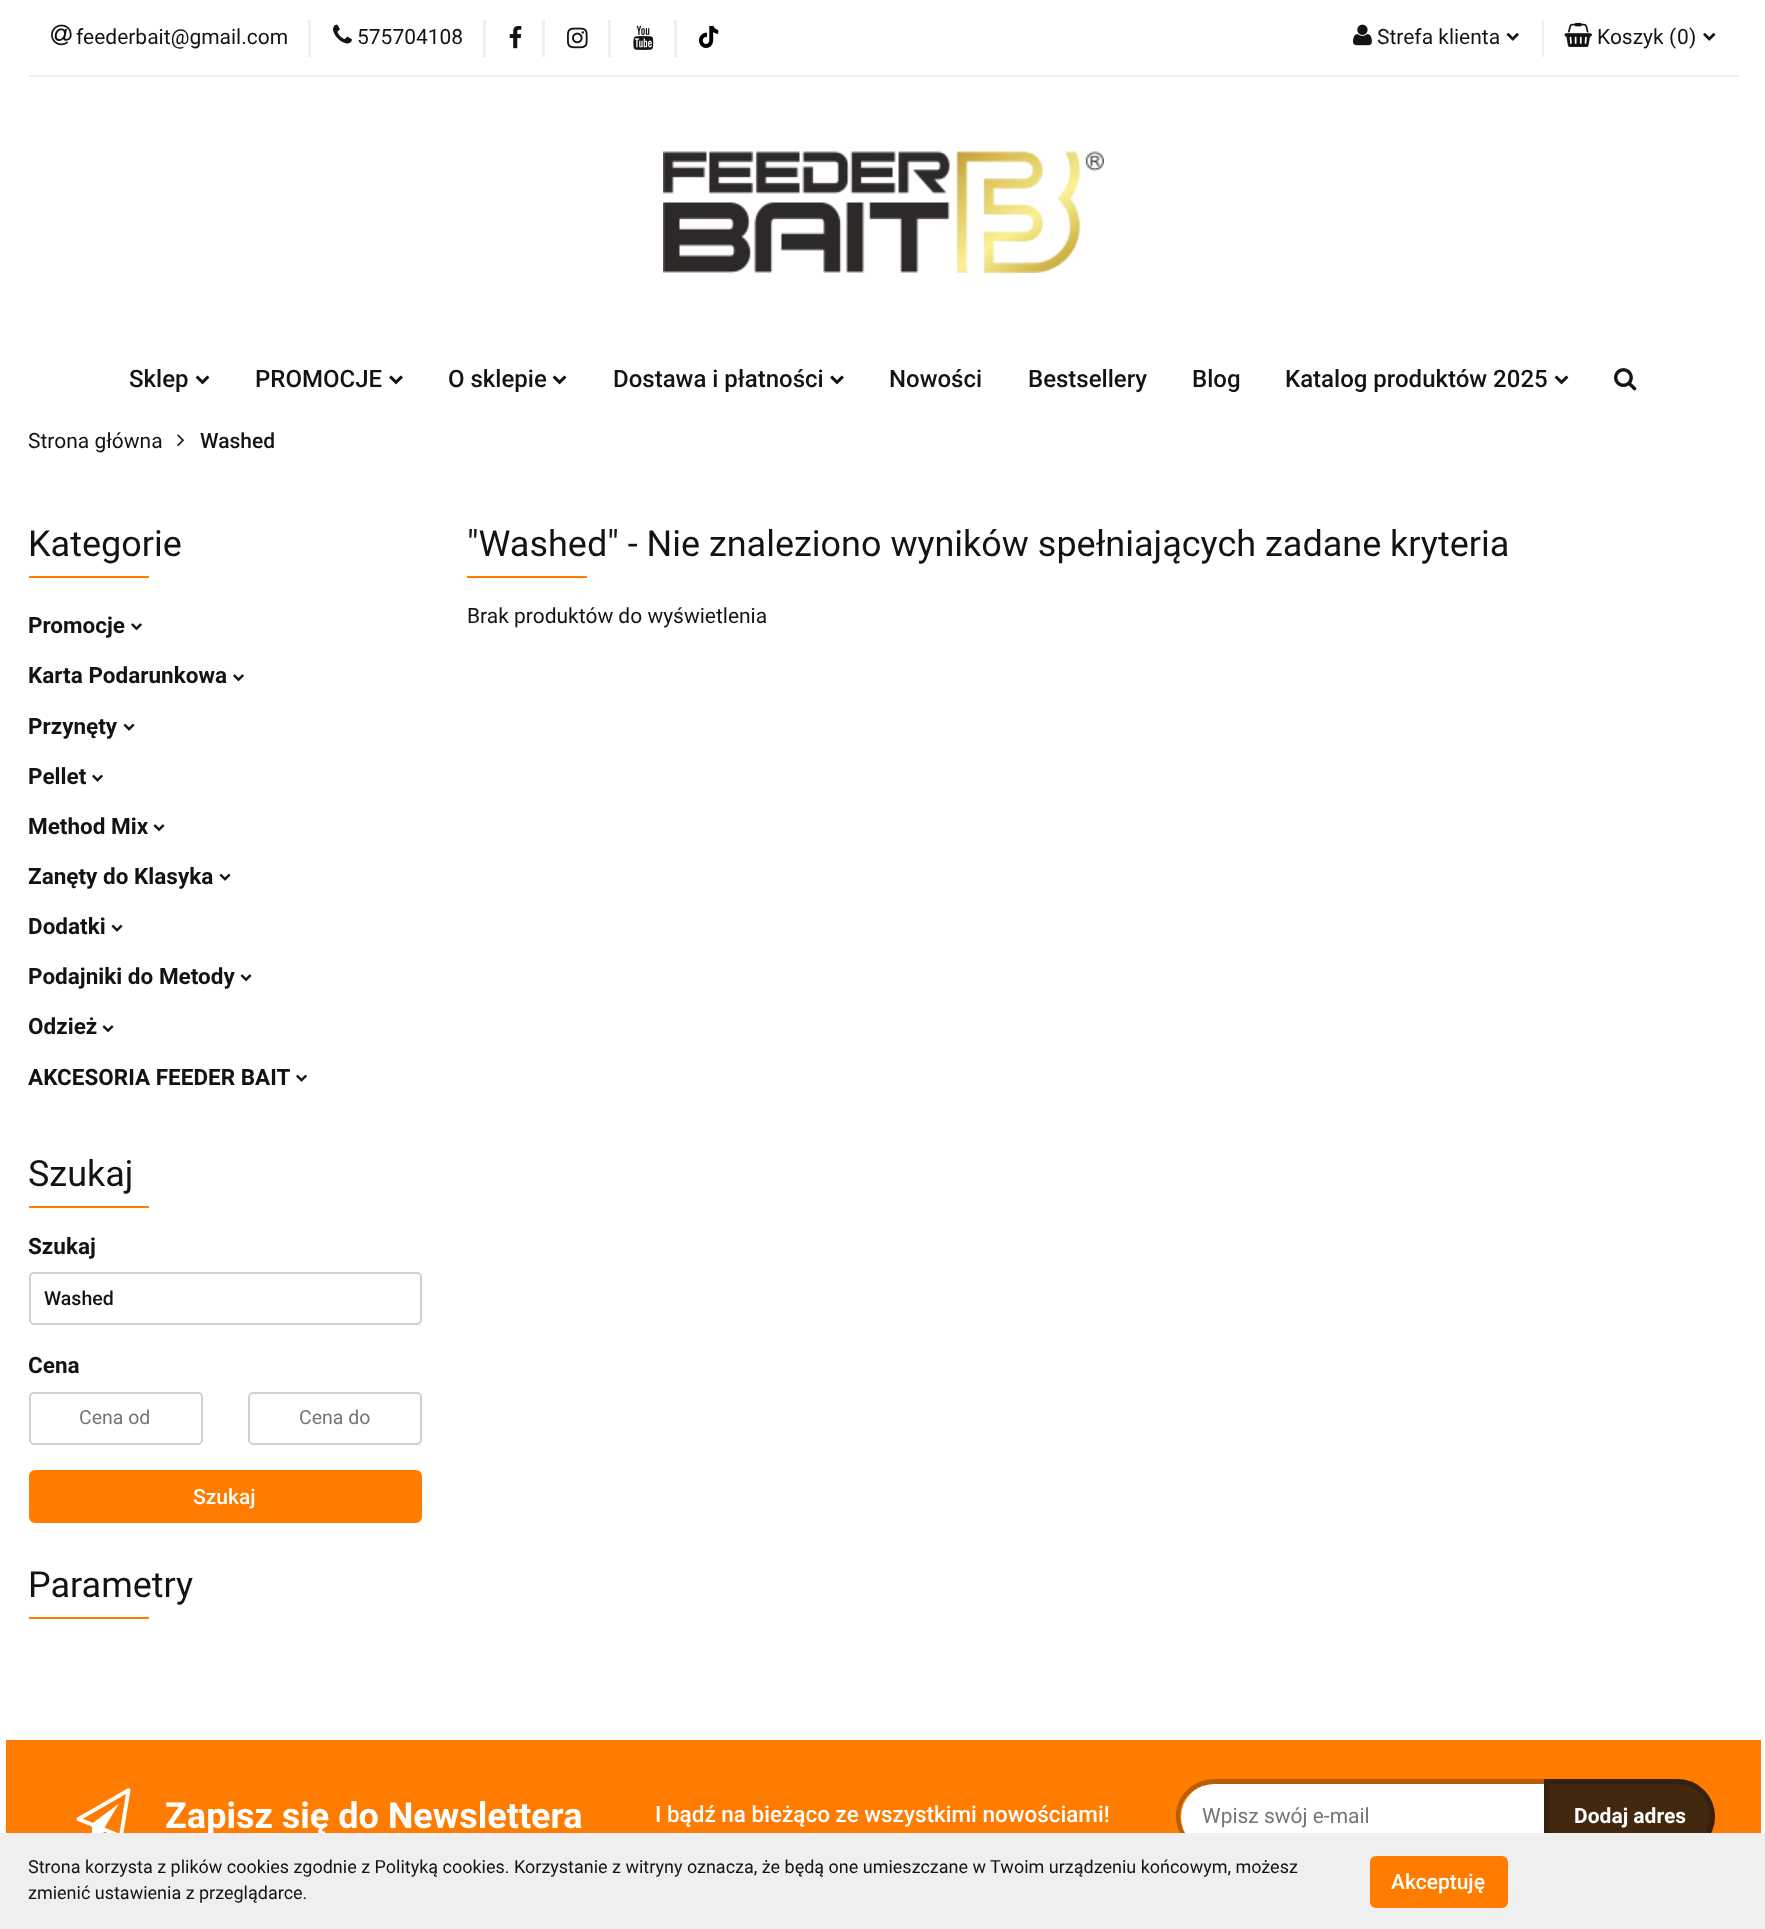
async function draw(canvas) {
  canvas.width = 1765;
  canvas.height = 1929;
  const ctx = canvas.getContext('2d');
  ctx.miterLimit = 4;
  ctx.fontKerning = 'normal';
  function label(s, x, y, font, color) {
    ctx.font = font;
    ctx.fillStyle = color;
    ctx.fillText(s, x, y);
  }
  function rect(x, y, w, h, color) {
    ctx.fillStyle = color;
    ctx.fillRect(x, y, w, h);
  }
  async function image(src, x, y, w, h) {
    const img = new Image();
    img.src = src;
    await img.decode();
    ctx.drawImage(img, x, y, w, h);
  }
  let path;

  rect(0, 0, 1765, 1929, '#fff');
  rect(29, 75, 1710, 2, '#efefef');
  await image('assets/img1.png', 51, 24, 21, 22);
  label('feederbait@gmail.com', 76, 44, '21px Roboto', '#131313');
  rect(308, 20, 3, 37, '#efefef');
  await image('assets/img2.png', 333, 24, 19, 20);
  label('575704108', 357, 44, '21px Roboto', '#131313');
  rect(483, 20, 3, 37, '#efefef');
  await image('assets/img3.png', 509, 25, 13, 24);
  rect(542, 20, 3, 37, '#efefef');
  await image('assets/img4.png', 567, 27, 21, 22);
  rect(608, 20, 3, 37, '#efefef');
  await image('assets/img5.png', 633, 25, 21, 25);
  rect(674, 20, 3, 37, '#efefef');
  await image('assets/img6.png', 699, 26, 20, 22);
  await image('assets/img7.png', 1353, 24, 19, 22);
  label('Strefa klienta', 1377, 44, '21px Roboto', '#131313');
  await image('assets/img8.png', 1506, 33, 13, 8);
  rect(1542, 20, 2, 37, '#efefef');
  await image('assets/img9.png', 1564, 22, 28, 25);
  label('Koszyk (', 1597, 44, '21px Roboto', '#131313');
  label('0', 1677, 44, '21px Roboto', '#131313');
  label(')', 1689, 44, '21px Roboto', '#131313');
  await image('assets/img10.png', 1703, 33, 13, 8);
  await image('assets/img11.png', 663, 151, 441, 122);
  label('Sklep', 129, 387, '500 24px Roboto', '#131313');
  await image('assets/img12.png', 195, 375, 15, 10);
  label('PROMOCJE', 255, 387, '500 24px Roboto', '#131313');
  await image('assets/img13.png', 389, 375, 14, 10);
  label('O sklepie', 448, 387, '500 24px Roboto', '#131313');
  await image('assets/img12.png', 552, 375, 15, 10);
  label('Dostawa i płatności', 613, 387, '500 24px Roboto', '#131313');
  await image('assets/img13.png', 830, 375, 14, 10);
  label('Nowości', 889, 387, '500 24px Roboto', '#131313');
  label('Bestsellery', 1028, 387, '500 24px Roboto', '#131313');
  label('Blog', 1192, 387, '500 24px Roboto', '#131313');
  label('Katalog produktów 2025', 1285, 387, '500 24px Roboto', '#131313');
  await image('assets/img12.png', 1554, 375, 15, 10);
  await image('assets/img14.png', 1614, 368, 23, 23);
  label('Strona główna', 28, 448, '21px Roboto', '#131313');
  await image('assets/img15.png', 177, 434, 7, 12);
  label('Washed', 200, 448, '500 21px Roboto', '#131313');
  label('Kategorie', 28, 556, '36px Roboto', '#131313');
  rect(29, 576, 120, 2, '#ff7c00');
  label('Promocje', 28, 633, 'bold 22.5px Roboto', '#131313');
  await image('assets/img16.png', 131, 623, 11, 8);
  label('Karta Podarunkowa', 28, 683, 'bold 22.5px Roboto', '#131313');
  await image('assets/img16.png', 233, 674, 11, 8);
  label('Przynęty', 28, 734, 'bold 22.5px Roboto', '#131313');
  await image('assets/img17.png', 123, 723, 12, 8);
  label('Pellet', 28, 784, 'bold 22.5px Roboto', '#131313');
  await image('assets/img18.png', 92, 774, 11, 8);
  label('Method Mix', 28, 834, 'bold 22.5px Roboto', '#131313');
  await image('assets/img19.png', 153, 824, 12, 8);
  label('Zanęty do Klasyka', 28, 884, 'bold 22.5px Roboto', '#131313');
  await image('assets/img17.png', 219, 873, 12, 8);
  label('Dodatki', 28, 934, 'bold 22.5px Roboto', '#131313');
  await image('assets/img17.png', 111, 924, 12, 8);
  label('Podajniki do Metody', 28, 984, 'bold 22.5px Roboto', '#131313');
  await image('assets/img19.png', 240, 974, 12, 8);
  label('Odzież', 28, 1034, 'bold 22.5px Roboto', '#131313');
  await image('assets/img19.png', 102, 1025, 12, 8);
  label('AKCESORIA FEEDER BAIT', 28, 1085, 'bold 22.5px Roboto', '#131313');
  await image('assets/img18.png', 296, 1074, 11, 8);
  label('Szukaj', 28, 1186, '36px Roboto', '#131313');
  rect(29, 1206, 120, 2, '#ff7c00');
  label('Szukaj', 28, 1254, 'bold 22.5px Roboto', '#131313');
  ctx.beginPath();
  ctx.roundRect(30, 1273, 391, 51, 4);
  ctx.strokeStyle = '#d0d0d0';
  ctx.lineWidth = 2;
  ctx.stroke();
  label('Washed', 44, 1305, '500 19.5px Roboto', '#131313');
  label('Cena', 28, 1373, 'bold 22.5px Roboto', '#131313');
  ctx.beginPath();
  ctx.roundRect(30, 1393, 172, 51, 4);
  ctx.stroke();
  label('Cena od', 79, 1424, '19.5px Roboto', '#757575');
  ctx.beginPath();
  ctx.roundRect(249, 1393, 172, 51, 4);
  ctx.stroke();
  label('Cena do', 299, 1424, '19.5px Roboto', '#757575');
  ctx.fillStyle = '#ff7c00';
  ctx.beginPath();
  ctx.roundRect(31.5, 1472.5, 388, 48, 3.5);
  ctx.fill();
  ctx.strokeStyle = '#ff7c00';
  ctx.lineWidth = 5;
  ctx.stroke();
  label('Szukaj', 193, 1504, '500 21px Roboto', '#fff');
  label('Parametry', 28, 1597, '36px Roboto', '#131313');
  rect(29, 1617, 120, 2, '#ff7c00');
  label('"Washed" - Nie znaleziono wyników spełniających zadane kryteria', 467, 556, '36px Roboto', '#131313');
  rect(467, 576, 120, 2, '#ff7c00');
  label('Brak produktów do wyświetlenia', 467, 623, '21px Roboto', '#131313');
  rect(6, 1740, 1755, 93, '#ff7c00');
  await image('assets/img20.png', 76, 1788, 55, 45);
  label('Zapisz się do Newslettera', 165, 1828, 'bold 36px Roboto', '#fff');
  label('I bądź na bieżąco ze wszystkimi nowościami!', 655, 1822, '500 22.5px Roboto', '#fff');
  ctx.beginPath();
  ctx.roundRect(1181, 1784, 363, 66, [33, 0, 0, 33]);
  ctx.fill();
  ctx.fillStyle = '#1313134d';
  path = new Path2D('M1214 1779H1544V1854H1214C1193 1854 1176 1837 1176 1816C1176 1796 1193 1779 1214 1779ZM1214 1784H1544V1850H1214C1195 1850 1180 1835 1180 1816C1180 1798 1195 1784 1214 1784Z');
  ctx.fill(path, 'evenodd');
  label('Wpisz swój e-mail', 1202, 1823, '21px Roboto', '#757575');
  ctx.fillStyle = '#42280f';
  ctx.beginPath();
  ctx.roundRect(1544, 1779, 171, 75, [0, 37.5, 37.5, 0]);
  ctx.fill();
  ctx.beginPath();
  ctx.roundRect(1546.5, 1781.5, 166, 70, [0, 35, 35, 0]);
  ctx.strokeStyle = '#1313134d';
  ctx.stroke();
  label('Dodaj adres', 1574, 1823, 'bold 21px Roboto', '#fff');
  rect(0, 1833, 1765, 96, '#efefef');
  label('Strona korzysta z plików cookies zgodnie z Polityką cookies. Korzystanie z witryny oznacza, że będą one umieszczane w Twoim urządzeniu końcowym, możesz', 28, 1873, '18px Roboto', '#131313');
  label('zmienić ustawienia z przeglądarce.', 28, 1899, '18px Roboto', '#131313');
  ctx.fillStyle = '#ff7c00';
  ctx.beginPath();
  ctx.roundRect(1372.5, 1858.5, 133, 47, 3.5);
  ctx.fill();
  ctx.strokeStyle = '#ff7c00';
  ctx.stroke();
  label('Akceptuję', 1391, 1889, '500 21px Roboto', '#fff');
}

draw(document.querySelector('canvas'));
